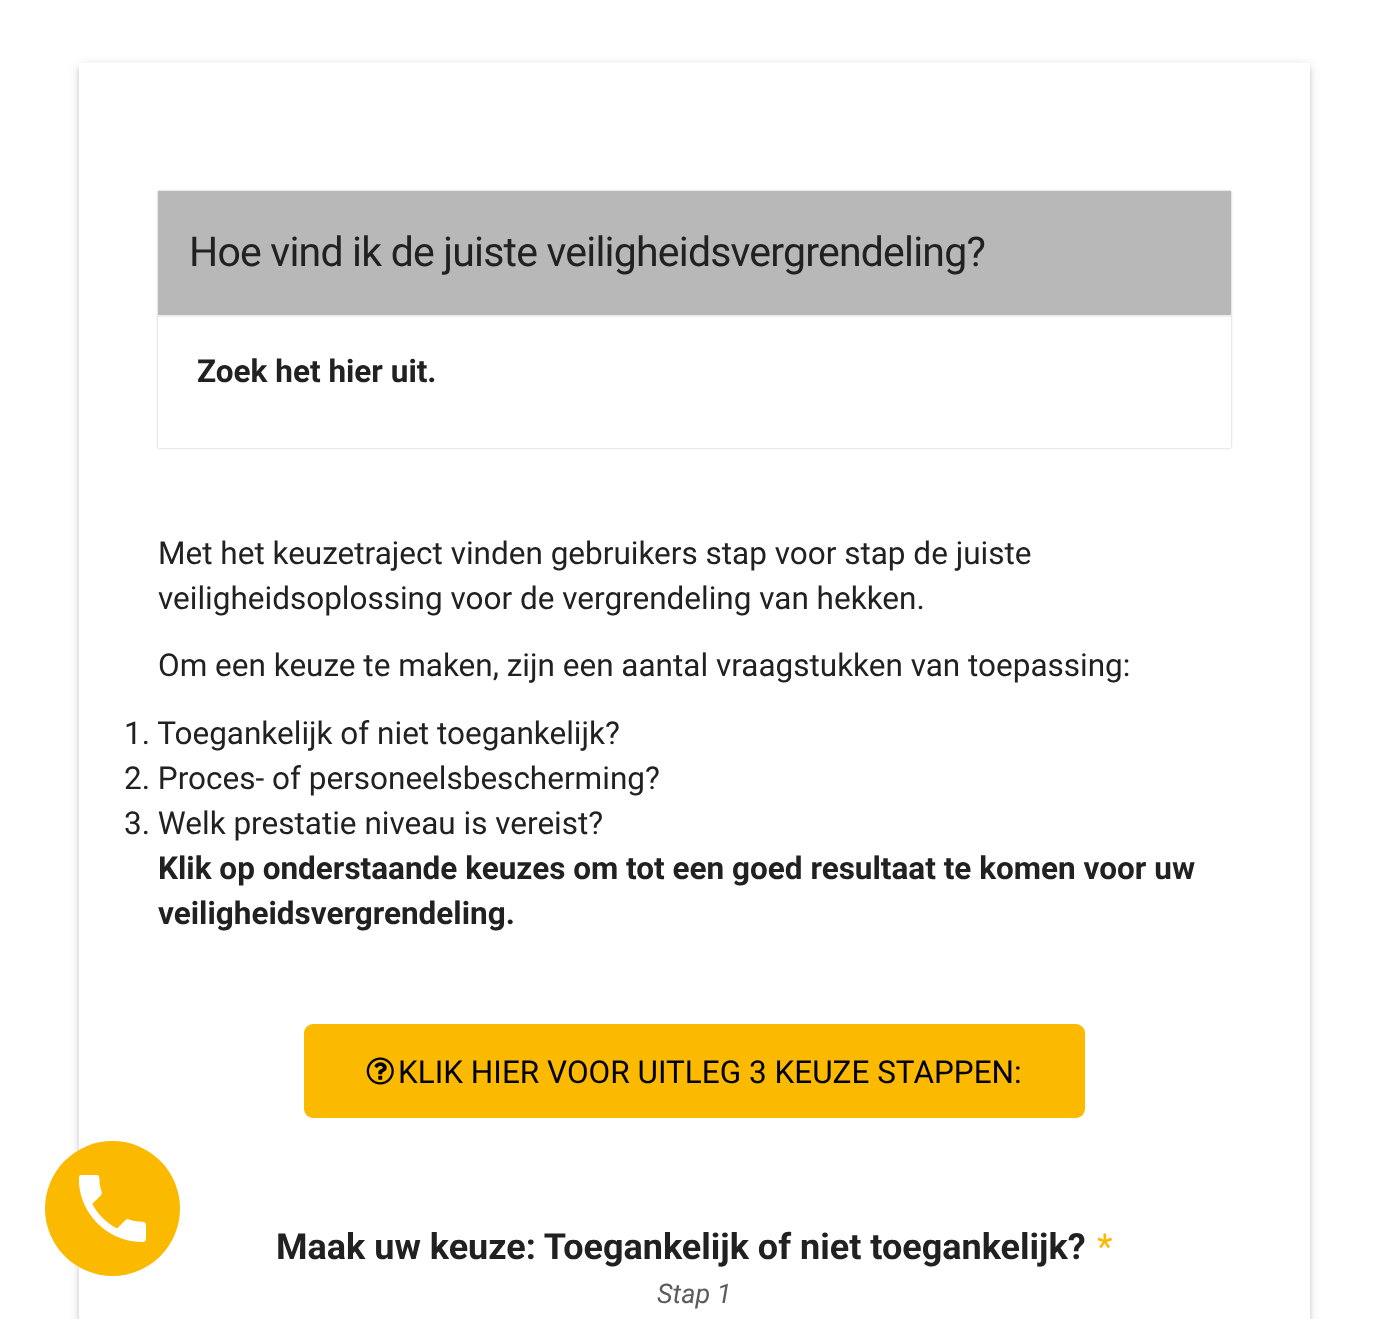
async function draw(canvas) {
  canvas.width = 1387;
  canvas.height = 1319;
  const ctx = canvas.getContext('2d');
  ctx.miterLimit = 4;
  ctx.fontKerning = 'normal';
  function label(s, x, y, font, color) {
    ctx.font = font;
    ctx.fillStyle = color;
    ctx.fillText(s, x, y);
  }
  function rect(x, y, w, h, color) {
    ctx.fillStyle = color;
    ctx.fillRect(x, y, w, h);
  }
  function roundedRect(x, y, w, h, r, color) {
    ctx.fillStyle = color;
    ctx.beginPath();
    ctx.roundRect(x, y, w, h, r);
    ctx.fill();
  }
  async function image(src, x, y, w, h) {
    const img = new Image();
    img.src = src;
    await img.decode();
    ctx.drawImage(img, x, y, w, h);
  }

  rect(0, 0, 1387, 1319, '#fff');
  ctx.fillStyle = '#0000001f';
  ctx.filter = 'blur(5.5px)';
  ctx.beginPath();
  ctx.rect(79, 65, 1231, 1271);
  ctx.fill();
  ctx.filter = 'none';
  ctx.fillStyle = '#00000024';
  ctx.filter = 'blur(2px)';
  ctx.beginPath();
  ctx.rect(79, 68, 1231, 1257);
  ctx.fill();
  ctx.filter = 'none';
  rect(79, 63, 1231, 1256, '#fff');
  ctx.fillStyle = '#fbb900';
  ctx.beginPath();
  ctx.arc(112.5, 1208.5, 67.5, 0, 2 * Math.PI);
  ctx.fill();
  await image('assets/img1.png', 79, 1175, 67, 67);
  ctx.fillStyle = '#0000001f';
  ctx.filter = 'blur(1px)';
  ctx.beginPath();
  ctx.rect(158, 191, 1073, 257);
  ctx.fill();
  ctx.filter = 'none';
  ctx.fillStyle = '#00000024';
  ctx.filter = 'blur(1px)';
  ctx.beginPath();
  ctx.rect(158, 191, 1073, 257);
  ctx.fill();
  ctx.filter = 'none';
  rect(158, 317, 1073, 131, '#fff');
  rect(158, 191, 1073, 124, '#b8b8b8');
  rect(158, 315, 1073, 2, '#eee');
  ctx.letterSpacing = '-0.8px';
  label('Hoe vind ik de juiste veiligheidsvergrendeling?', 189, 266, '41px Roboto', '#212121');
  ctx.letterSpacing = '0px';
  label('Zoek het hier uit.', 197, 382, 'bold 31.5px Roboto', '#212121');
  label('Met het keuzetraject vinden gebruikers stap voor stap de juiste', 158, 564, '31.5px Roboto', '#212121');
  label('veiligheidsoplossing voor de vergrendeling van hekken.', 158, 609, '31.5px Roboto', '#212121');
  label('Om een keuze te maken, zijn een aantal vraagstukken van toepassing:', 158, 676, '31.5px Roboto', '#212121');
  label('1. Toegankelijk of niet toegankelijk?', 124, 744, '31.5px Roboto', '#212121');
  label('2. Proces- of personeelsbescherming?', 124, 789, '31.5px Roboto', '#212121');
  label('3. Welk prestatie niveau is vereist?', 124, 834, '31.5px Roboto', '#212121');
  label('Klik op onderstaande keuzes om tot een goed resultaat te komen voor uw', 158, 879, 'bold 31.5px Roboto', '#212121');
  label('veiligheidsvergrendeling.', 158, 924, 'bold 31.5px Roboto', '#212121');
  roundedRect(304, 1024, 781, 94, 9, '#fbb900');
  await image('assets/img2.png', 366, 1057, 28, 28);
  label('KLIK HIER VOOR UITLEG 3 KEUZE STAPPEN:', 398, 1083, '31.5px Roboto', '#000');
  label('Maak uw keuze: Toegankelijk of niet toegankelijk?', 276, 1259, 'bold 36px Roboto', '#212121');
  label('*', 1097, 1259, '36px Roboto', '#fbb900');
  label('Stap 1', 657, 1303, 'italic 27px Roboto', '#5c5c5c');
}

draw(document.querySelector('canvas'));
